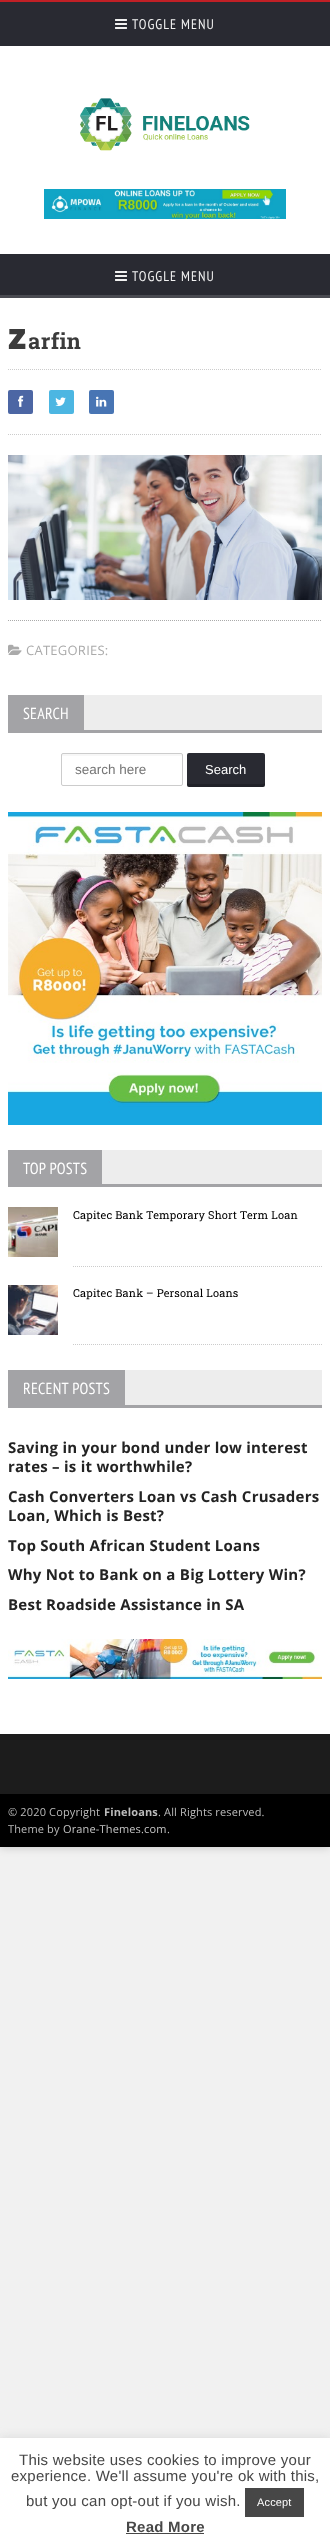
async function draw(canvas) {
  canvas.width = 330;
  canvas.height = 2546;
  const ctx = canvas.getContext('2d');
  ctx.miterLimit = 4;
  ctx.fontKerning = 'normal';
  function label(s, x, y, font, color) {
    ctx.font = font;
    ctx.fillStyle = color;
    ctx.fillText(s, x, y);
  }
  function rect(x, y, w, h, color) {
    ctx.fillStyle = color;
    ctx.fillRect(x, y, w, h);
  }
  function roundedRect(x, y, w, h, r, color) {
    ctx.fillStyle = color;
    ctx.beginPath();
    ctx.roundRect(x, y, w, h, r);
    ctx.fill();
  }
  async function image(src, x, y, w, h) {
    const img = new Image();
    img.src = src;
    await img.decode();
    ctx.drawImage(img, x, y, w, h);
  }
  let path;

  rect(0, 0, 330, 2546, '#f1f1f1');
  ctx.fillStyle = '#00000033';
  ctx.filter = 'blur(5px)';
  ctx.beginPath();
  ctx.rect(0, 0, 330, 1847);
  ctx.fill();
  ctx.filter = 'none';
  rect(0, 46, 330, 1688, '#fff');
  rect(0, 2, 330, 44, '#292a32');
  rect(0, 0, 330, 2, '#c12026');
  await image('assets/img1.png', 115, 19, 12, 10);
  ctx.letterSpacing = '1px';
  label('TOGGLE MENU', 132, 29, '14px PT Sans Narrow', '#f1f1f1');
  await image('assets/img2.png', 80, 98, 170, 53);
  await image('assets/img3.png', 44, 189, 242, 30);
  rect(0, 254, 330, 41, '#292a32');
  rect(0, 295, 330, 3, '#494a51');
  await image('assets/img1.png', 115, 271, 12, 10);
  label('TOGGLE MENU', 132, 281, '14px PT Sans Narrow', '#f1f1f1');
  ctx.letterSpacing = '0.25px';
  label('z', 8, 349, '900 36px Noto Sans', '#3b3b3b');
  label('arfin', 28, 349, 'bold 22px Roboto Slab', '#3b3b3b');
  path = new Path2D('M8 369.5H322');
  ctx.strokeStyle = '#ccc';
  ctx.setLineDash([1, 1]);
  ctx.stroke(path);
  path = new Path2D('M8 434.5H322');
  ctx.stroke(path);
  roundedRect(8, 390, 25, 24, 2, '#4c66a4');
  await image('assets/img4.png', 18, 395, 6, 12);
  roundedRect(49, 390, 25, 24, 2, '#4cb6e2');
  await image('assets/img5.png', 55, 397, 11, 9);
  roundedRect(89, 390, 25, 24, 2, '#4875b4');
  await image('assets/img6.png', 96, 396, 11, 11);
  await image('assets/img7.png', 8, 455, 314, 145);
  path = new Path2D('M8 620.5H322');
  ctx.strokeStyle = '#aaa';
  ctx.stroke(path);
  await image('assets/img8.png', 8, 644, 14, 11);
  label('CATEGORIES:', 26, 655, '13px Open Sans', '#aaa');
  rect(84, 695, 238, 35, '#ededed');
  rect(8, 695, 76, 35, '#a3a3a6');
  label('SEARCH', 23, 719, '16px PT Sans Narrow', '#fff');
  rect(8, 730, 314, 3, '#a3a3a6');
  ctx.fillStyle = '#f7f7f7';
  path = new Path2D('M63 756H182V757V755C182 754 182 754 181 754H63C62 754 62 754 62 755V757C62 756 62 756 63 756Z');
  ctx.fill(path);
  ctx.beginPath();
  ctx.roundRect(61.5, 753.5, 121, 32, 1.5);
  ctx.strokeStyle = '#ccc';
  ctx.setLineDash([]);
  ctx.stroke();
  ctx.letterSpacing = '0px';
  label('search here', 75, 774, '13.5px Liberation Sans', '#757575');
  roundedRect(187, 753, 78, 34, 2, '#292a32');
  ctx.fillStyle = '#00000033';
  path = new Path2D('M187 782V785C187 786 188 787 189 787H263C264 787 265 786 265 785V782C265 783 264 784 263 784H189C188 784 187 783 187 782Z');
  ctx.fill(path);
  label('Search', 205, 774, '13px Liberation Sans', '#fff');
  await image('assets/img9.png', 8, 812, 314, 313);
  rect(102, 1150, 220, 34, '#ededed');
  rect(8, 1150, 94, 34, '#a3a3a6');
  ctx.letterSpacing = '0.25px';
  label('TOP POSTS', 23, 1174, '16px PT Sans Narrow', '#fff');
  rect(8, 1184, 314, 3, '#a3a3a6');
  await image('assets/img10.png', 8, 1207, 50, 50);
  path = new Path2D('M73 1266.5H322');
  ctx.setLineDash([1, 1]);
  ctx.stroke(path);
  ctx.letterSpacing = '0.15px';
  label('Capitec Bank Temporary Short Term Loan', 73, 1219, '11px Roboto Slab', '#000');
  await image('assets/img11.png', 8, 1285, 50, 50);
  path = new Path2D('M73 1344.5H322');
  ctx.stroke(path);
  label('Capitec Bank – Personal Loans', 73, 1297, '11px Roboto Slab', '#000');
  rect(125, 1370, 197, 35, '#ededed');
  rect(8, 1370, 117, 35, '#a3a3a6');
  ctx.letterSpacing = '0.25px';
  label('RECENT POSTS', 23, 1394, '16px PT Sans Narrow', '#fff');
  rect(8, 1405, 314, 3, '#a3a3a6');
  label('Saving in your bond under low interest', 8, 1453, 'bold 15px Open Sans', '#232323');
  label('rates – is it worthwhile?', 8, 1472, 'bold 15px Open Sans', '#232323');
  label('Cash Converters Loan vs Cash Crusaders', 8, 1502, 'bold 15px Open Sans', '#232323');
  label('Loan, Which is Best?', 8, 1521, 'bold 15px Open Sans', '#232323');
  label('Top South African Student Loans', 8, 1551, 'bold 15px Open Sans', '#232323');
  label('Why Not to Bank on a Big Lottery Win?', 8, 1580, 'bold 15px Open Sans', '#232323');
  label('Best Roadside Assistance in SA', 8, 1610, 'bold 15px Open Sans', '#232323');
  await image('assets/img12.png', 8, 1639, 314, 40);
  rect(0, 1734, 330, 60, '#1c1c1c');
  rect(0, 1794, 330, 53, '#000');
  ctx.letterSpacing = '0.15px';
  label('© 2020 Copyright', 8, 1816, '11px Open Sans', '#bbb');
  label('Fineloans', 104, 1816, 'bold 11px Open Sans', '#bbb');
  label('. All Rights reserved.', 158, 1816, '11px Open Sans', '#bbb');
  label('Theme by', 8, 1833, '11px Open Sans', '#bbb');
  label('Orane-Themes.com', 63, 1833, '11px Open Sans', '#c5c5c5');
  label('.', 167, 1833, '11px Open Sans', '#bbb');
  ctx.fillStyle = '#acabab4d';
  ctx.filter = 'blur(5px)';
  ctx.beginPath();
  ctx.rect(0, 2437, 330, 108);
  ctx.fill();
  ctx.filter = 'none';
  rect(0, 2438, 330, 108, '#fff');
  ctx.letterSpacing = '0.25px';
  label('This website uses cookies to improve your', 19, 2465, '15px Liberation Sans', '#474747');
  label('experience. We\'ll assume you\'re ok with this,', 11, 2481, '15px Liberation Sans', '#474747');
  label('but you can opt-out if you wish.', 26, 2506, '15px Liberation Sans', '#474747');
  rect(245, 2488, 59, 29, '#474747');
  ctx.letterSpacing = '0.15px';
  label('Accept', 257, 2506, '11px Liberation Sans', '#fff');
  ctx.letterSpacing = '0.25px';
  label('Read More', 126, 2532, 'bold 15px Liberation Sans', '#474747');
  rect(126, 2533, 78, 1, '#474747');
}

draw(document.querySelector('canvas'));
